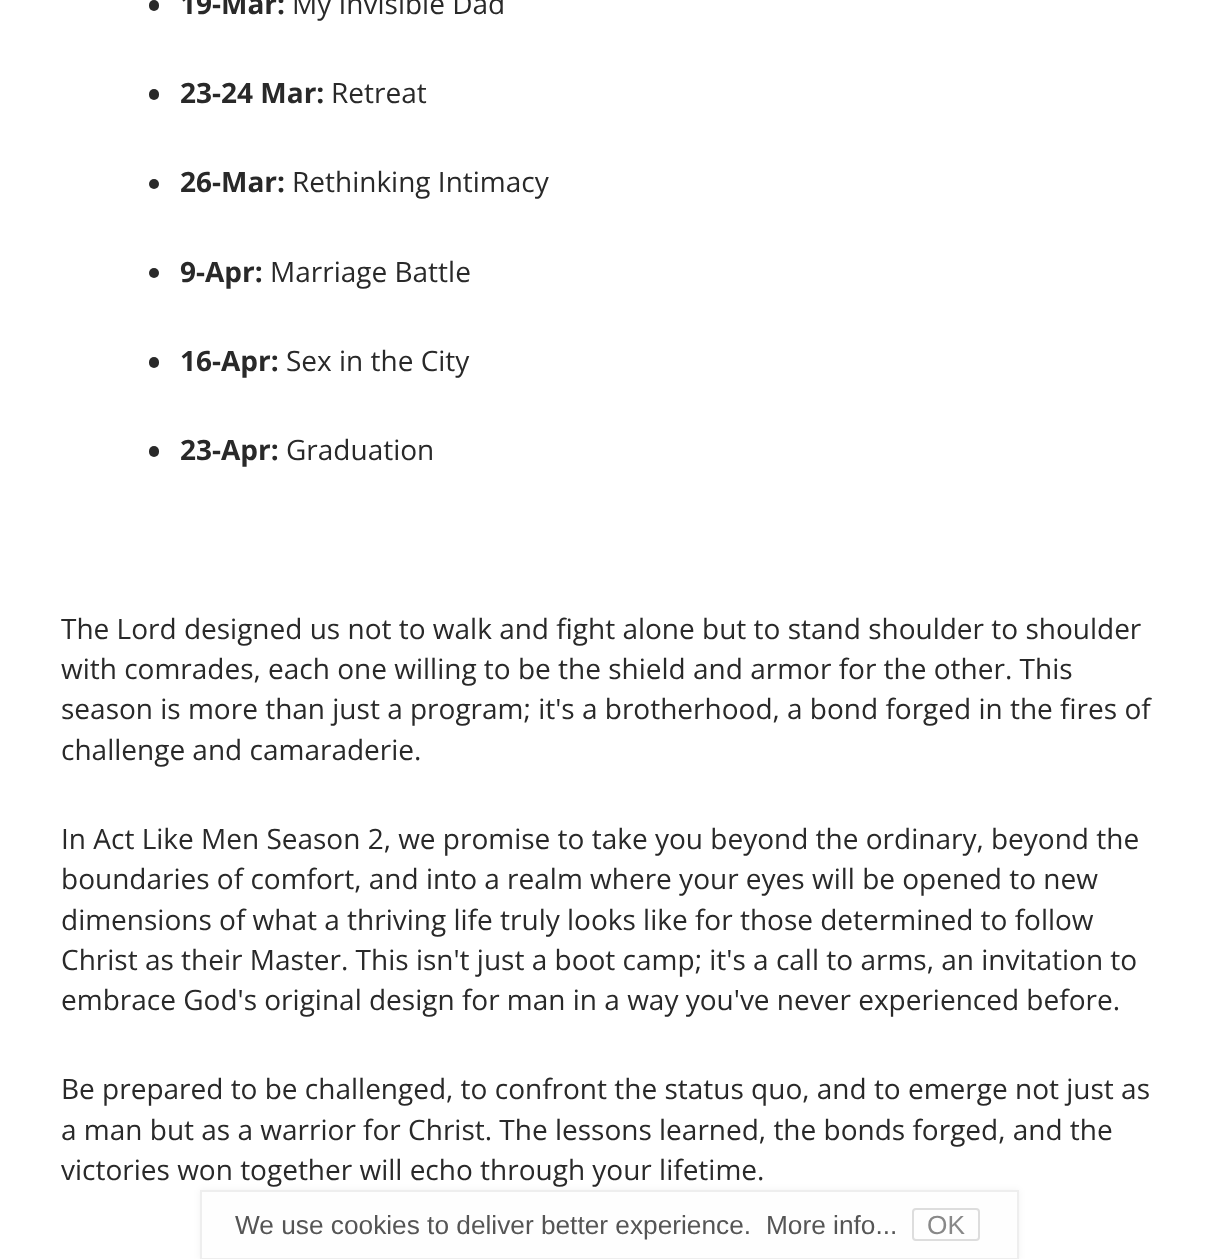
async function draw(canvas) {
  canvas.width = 1216;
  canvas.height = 1259;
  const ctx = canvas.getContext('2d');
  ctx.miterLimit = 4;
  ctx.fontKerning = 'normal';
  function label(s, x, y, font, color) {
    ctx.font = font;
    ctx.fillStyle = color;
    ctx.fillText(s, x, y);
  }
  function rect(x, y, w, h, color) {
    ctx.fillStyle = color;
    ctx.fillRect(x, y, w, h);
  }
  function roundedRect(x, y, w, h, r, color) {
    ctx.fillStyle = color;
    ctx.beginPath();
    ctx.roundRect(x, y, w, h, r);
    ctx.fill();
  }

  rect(0, 0, 1216, 1259, '#fff');
  roundedRect(149, 0, 10, 11, 5, '#292929');
  label('19-Mar:', 180, 14, 'bold 28px Open Sans', '#292929');
  label('My Invisible Dad', 292, 14, '28px Open Sans', '#292929');
  roundedRect(149, 89, 10, 11, 5, '#292929');
  label('23-24 Mar:', 180, 103, 'bold 28px Open Sans', '#292929');
  label('Retreat', 331, 103, '28px Open Sans', '#292929');
  ctx.beginPath();
  ctx.arc(154, 184, 5, 0, 2 * Math.PI);
  ctx.fill();
  label('26-Mar:', 180, 192, 'bold 28px Open Sans', '#292929');
  label('Rethinking Intimacy', 292, 192, '28px Open Sans', '#292929');
  ctx.beginPath();
  ctx.arc(154, 273, 5, 0, 2 * Math.PI);
  ctx.fill();
  label('9-Apr:', 180, 282, 'bold 28px Open Sans', '#292929');
  label('Marriage Battle', 270, 282, '28px Open Sans', '#292929');
  roundedRect(149, 357, 10, 11, 5, '#292929');
  label('16-Apr:', 180, 371, 'bold 28px Open Sans', '#292929');
  label('Sex in the City', 286, 371, '28px Open Sans', '#292929');
  roundedRect(149, 446, 10, 11, 5, '#292929');
  label('23-Apr:', 180, 460, 'bold 28px Open Sans', '#292929');
  label('Graduation', 286, 460, '28px Open Sans', '#292929');
  label('The Lord designed us not to walk and fight alone but to stand shoulder to shoulder', 61, 639, '28px Open Sans', '#292929');
  label('with comrades, each one willing to be the shield and armor for the other. This', 61, 679, '28px Open Sans', '#292929');
  label('season is more than just a program; it\'s a brotherhood, a bond forged in the fires of', 61, 719, '28px Open Sans', '#292929');
  label('challenge and camaraderie.', 61, 760, '28px Open Sans', '#292929');
  label('In Act Like Men Season 2, we promise to take you beyond the ordinary, beyond the', 61, 849, '28px Open Sans', '#292929');
  label('boundaries of comfort, and into a realm where your eyes will be opened to new', 61, 889, '28px Open Sans', '#292929');
  label('dimensions of what a thriving life truly looks like for those determined to follow', 61, 930, '28px Open Sans', '#292929');
  label('Christ as their Master. This isn\'t just a boot camp; it\'s a call to arms, an invitation to', 61, 970, '28px Open Sans', '#292929');
  label('embrace God\'s original design for man in a way you\'ve never experienced before.', 61, 1010, '28px Open Sans', '#292929');
  label('Be prepared to be challenged, to confront the status quo, and to emerge not just as', 61, 1099, '28px Open Sans', '#292929');
  label('a man but as a warrior for Christ. The lessons learned, the bonds forged, and the', 61, 1140, '28px Open Sans', '#292929');
  label('victories won together will echo through your lifetime.', 61, 1180, '28px Open Sans', '#292929');
  ctx.fillStyle = '#0000000d';
  ctx.filter = 'blur(3.5px)';
  ctx.beginPath();
  ctx.rect(200, 1190, 819, 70);
  ctx.fill();
  ctx.filter = 'none';
  ctx.fillStyle = '#fefefe';
  ctx.beginPath();
  ctx.rect(201, 1191, 817, 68);
  ctx.fill();
  ctx.strokeStyle = '#eee';
  ctx.lineWidth = 2;
  ctx.stroke();
  label('We use cookies to deliver better experience.', 235, 1234, '26.25px Liberation Sans', '#555');
  label('More info...', 766, 1234, '26.25px Liberation Sans', '#555');
  ctx.beginPath();
  ctx.roundRect(913, 1209, 66, 31, 3);
  ctx.strokeStyle = '#ddd';
  ctx.stroke();
  label('OK', 927, 1234, '26.25px Liberation Sans', '#888');
}

draw(document.querySelector('canvas'));
